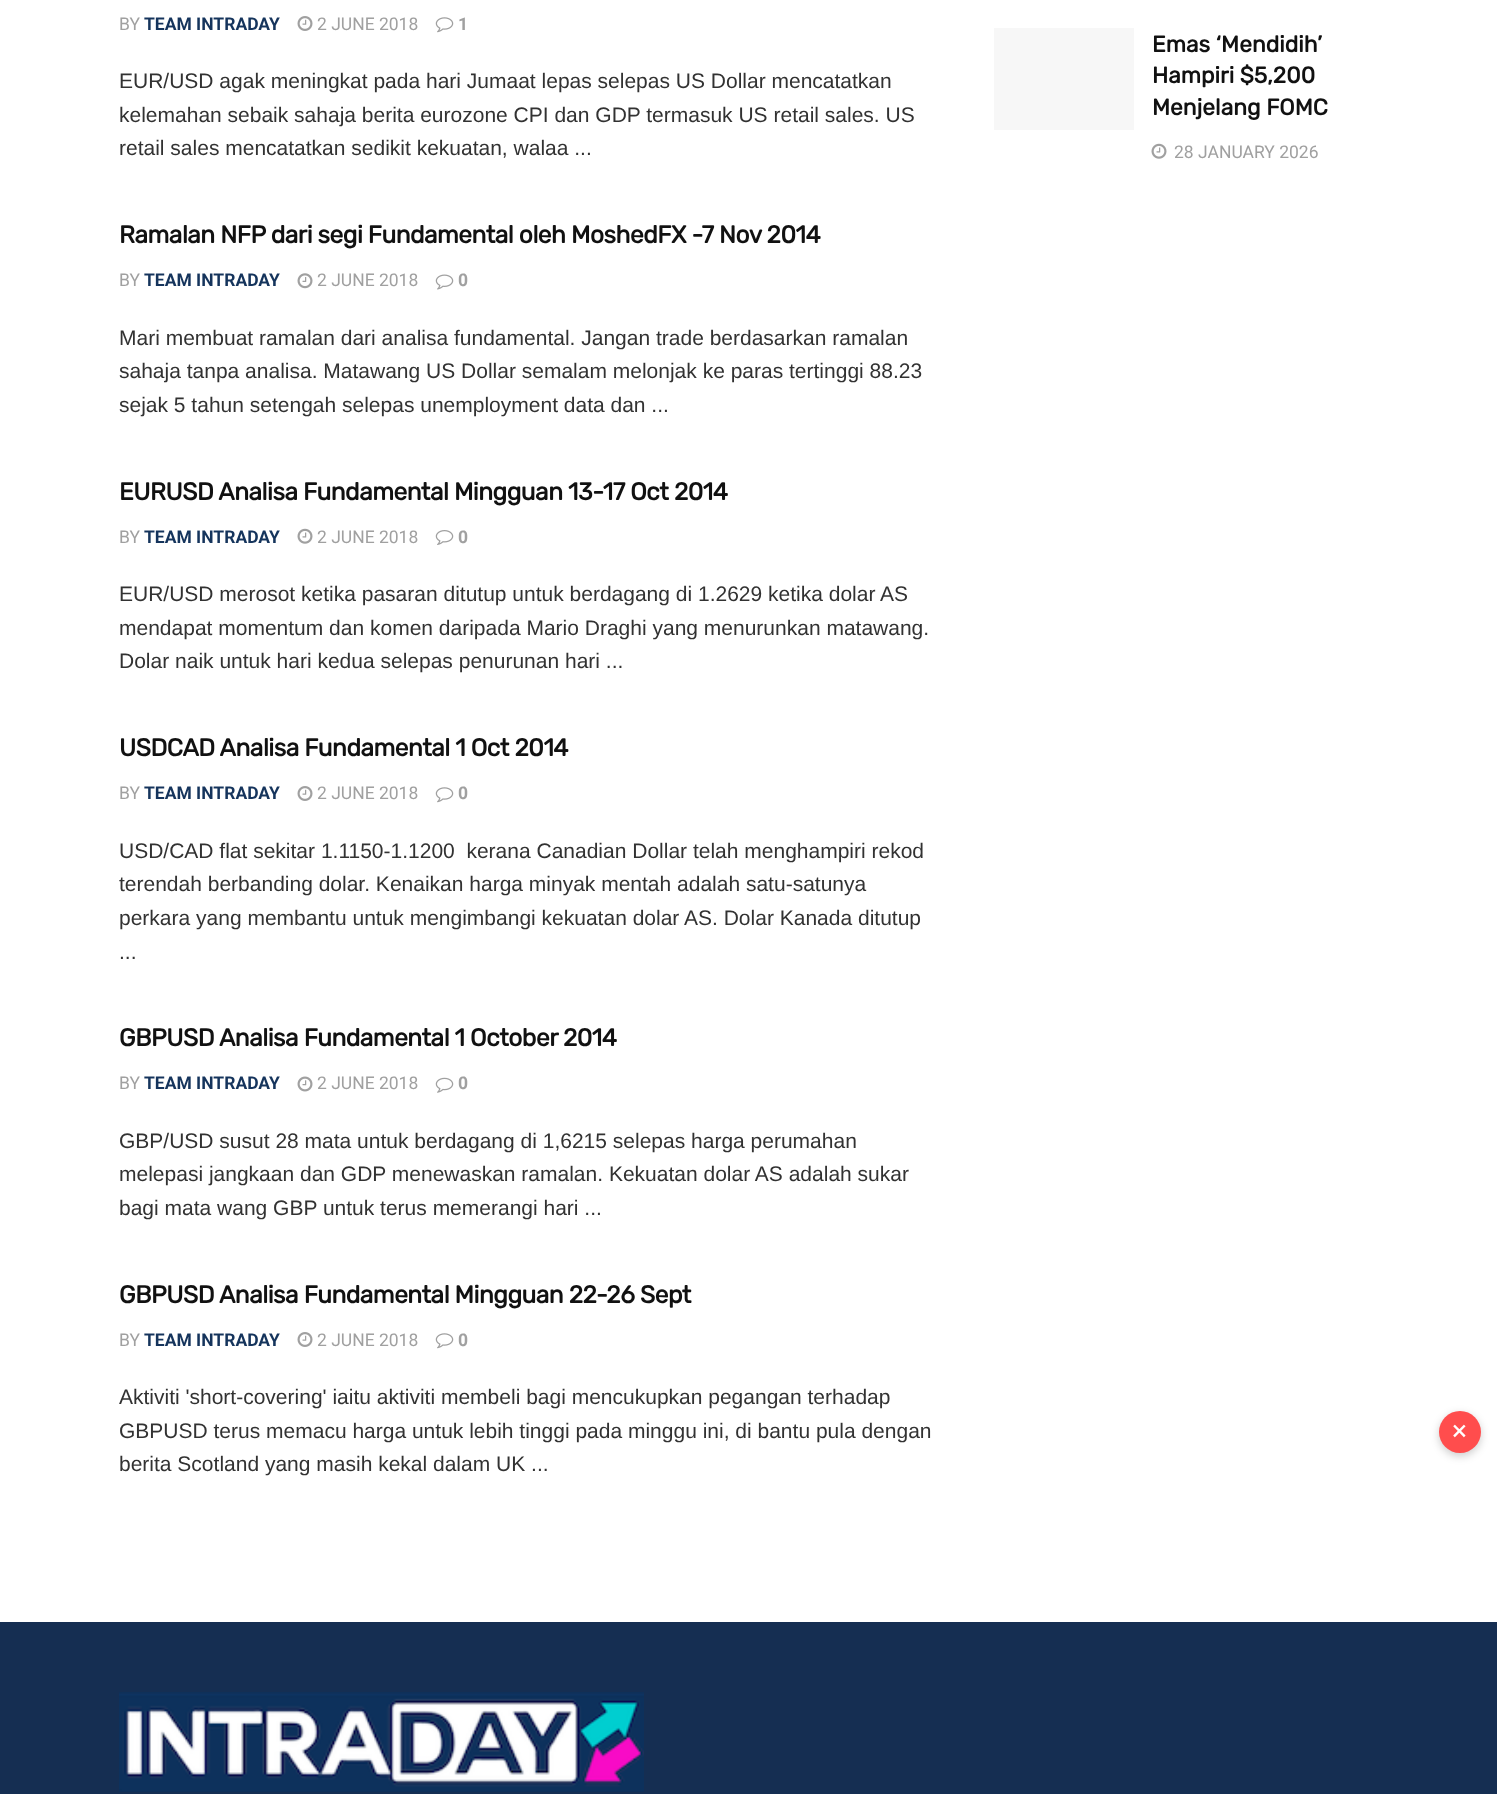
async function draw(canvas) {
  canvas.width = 1497;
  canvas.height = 1794;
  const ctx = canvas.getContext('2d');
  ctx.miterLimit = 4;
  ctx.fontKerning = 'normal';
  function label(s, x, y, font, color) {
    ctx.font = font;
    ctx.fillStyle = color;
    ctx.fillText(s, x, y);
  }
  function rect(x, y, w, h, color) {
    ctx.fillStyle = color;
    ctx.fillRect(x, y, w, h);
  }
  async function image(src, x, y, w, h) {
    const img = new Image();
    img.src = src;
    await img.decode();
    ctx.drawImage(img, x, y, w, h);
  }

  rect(0, 0, 1497, 1794, '#fff');
  label('BY', 119, 30, '17.5px Roboto', '#a0a0a0');
  label('TEAM INTRADAY', 144, 30, 'bold 17.5px Roboto', '#15345c');
  await image('assets/img1.png', 297, 16, 16, 15);
  label('2 JUNE 2018', 317, 30, '17.5px Roboto', '#a0a0a0');
  await image('assets/img2.png', 435, 17, 19, 16);
  label('1', 458, 30, 'bold 17.5px Roboto', '#a0a0a0');
  label('EUR/USD agak meningkat pada hari Jumaat lepas selepas US Dollar mencatatkan', 119, 88, '21px Liberation Sans', '#323232');
  label('kelemahan sebaik sahaja berita eurozone CPI dan GDP termasuk US retail sales. US', 119, 122, '21px Liberation Sans', '#323232');
  label('retail sales mencatatkan sedikit kekuatan, walaa ...', 119, 155, '21px Liberation Sans', '#323232');
  ctx.letterSpacing = '-0.5px';
  label('Ramalan NFP dari segi Fundamental oleh MoshedFX -7 Nov 2014', 119, 243, 'bold 24.5px Rubik', '#111');
  ctx.letterSpacing = '0px';
  label('BY', 119, 286, '17.5px Roboto', '#a0a0a0');
  label('TEAM INTRADAY', 144, 286, 'bold 17.5px Roboto', '#15345c');
  await image('assets/img3.png', 297, 273, 16, 16);
  label('2 JUNE 2018', 317, 286, '17.5px Roboto', '#a0a0a0');
  await image('assets/img4.png', 435, 274, 19, 16);
  label('0', 458, 286, 'bold 17.5px Roboto', '#a0a0a0');
  label('Mari membuat ramalan dari analisa fundamental. Jangan trade berdasarkan ramalan', 119, 345, '21px Liberation Sans', '#323232');
  label('sahaja tanpa analisa. Matawang US Dollar semalam melonjak ke paras tertinggi 88.23', 119, 378, '21px Liberation Sans', '#323232');
  label('sejak 5 tahun setengah selepas unemployment data dan ...', 119, 412, '21px Liberation Sans', '#323232');
  ctx.letterSpacing = '-0.5px';
  label('EURUSD Analisa Fundamental Mingguan 13-17 Oct 2014', 119, 500, 'bold 24.5px Rubik', '#111');
  ctx.letterSpacing = '0px';
  label('BY', 119, 543, '17.5px Roboto', '#a0a0a0');
  label('TEAM INTRADAY', 144, 543, 'bold 17.5px Roboto', '#15345c');
  await image('assets/img5.png', 297, 528, 16, 16);
  label('2 JUNE 2018', 317, 543, '17.5px Roboto', '#a0a0a0');
  await image('assets/img6.png', 435, 530, 19, 15);
  label('0', 458, 543, 'bold 17.5px Roboto', '#a0a0a0');
  label('EUR/USD merosot ketika pasaran ditutup untuk berdagang di 1.2629 ketika dolar AS', 119, 601, '21px Liberation Sans', '#323232');
  label('mendapat momentum dan komen daripada Mario Draghi yang menurunkan matawang.', 119, 635, '21px Liberation Sans', '#323232');
  label('Dolar naik untuk hari kedua selepas penurunan hari ...', 119, 668, '21px Liberation Sans', '#323232');
  ctx.letterSpacing = '-0.5px';
  label('USDCAD Analisa Fundamental 1 Oct 2014', 119, 756, 'bold 24.5px Rubik', '#111');
  ctx.letterSpacing = '0px';
  label('BY', 119, 799, '17.5px Roboto', '#a0a0a0');
  label('TEAM INTRADAY', 144, 799, 'bold 17.5px Roboto', '#15345c');
  await image('assets/img1.png', 297, 786, 16, 15);
  label('2 JUNE 2018', 317, 799, '17.5px Roboto', '#a0a0a0');
  await image('assets/img2.png', 435, 787, 19, 16);
  label('0', 458, 799, 'bold 17.5px Roboto', '#a0a0a0');
  label('USD/CAD flat sekitar 1.1150-1.1200  kerana Canadian Dollar telah menghampiri rekod', 119, 858, '21px Liberation Sans', '#323232');
  label('terendah berbanding dolar. Kenaikan harga minyak mentah adalah satu-satunya', 119, 891, '21px Liberation Sans', '#323232');
  label('perkara yang membantu untuk mengimbangi kekuatan dolar AS. Dolar Kanada ditutup', 119, 925, '21px Liberation Sans', '#323232');
  label('...', 119, 959, '21px Liberation Sans', '#323232');
  ctx.letterSpacing = '-0.5px';
  label('GBPUSD Analisa Fundamental 1 October 2014', 119, 1046, 'bold 24.5px Rubik', '#111');
  ctx.letterSpacing = '0px';
  label('BY', 119, 1089, '17.5px Roboto', '#a0a0a0');
  label('TEAM INTRADAY', 144, 1089, 'bold 17.5px Roboto', '#15345c');
  await image('assets/img7.png', 297, 1076, 16, 16);
  label('2 JUNE 2018', 317, 1089, '17.5px Roboto', '#a0a0a0');
  await image('assets/img8.png', 435, 1077, 19, 16);
  label('0', 458, 1089, 'bold 17.5px Roboto', '#a0a0a0');
  label('GBP/USD susut 28 mata untuk berdagang di 1,6215 selepas harga perumahan', 119, 1148, '21px Liberation Sans', '#323232');
  label('melepasi jangkaan dan GDP menewaskan ramalan. Kekuatan dolar AS adalah sukar', 119, 1181, '21px Liberation Sans', '#323232');
  label('bagi mata wang GBP untuk terus memerangi hari ...', 119, 1215, '21px Liberation Sans', '#323232');
  ctx.letterSpacing = '-0.5px';
  label('GBPUSD Analisa Fundamental Mingguan 22-26 Sept', 119, 1303, 'bold 24.5px Rubik', '#111');
  ctx.letterSpacing = '0px';
  label('BY', 119, 1346, '17.5px Roboto', '#a0a0a0');
  label('TEAM INTRADAY', 144, 1346, 'bold 17.5px Roboto', '#15345c');
  await image('assets/img1.png', 297, 1332, 16, 15);
  label('2 JUNE 2018', 317, 1346, '17.5px Roboto', '#a0a0a0');
  await image('assets/img2.png', 435, 1333, 19, 16);
  label('0', 458, 1346, 'bold 17.5px Roboto', '#a0a0a0');
  label('Aktiviti \'short-covering\' iaitu aktiviti membeli bagi mencukupkan pegangan terhadap', 119, 1404, '21px Liberation Sans', '#323232');
  label('GBPUSD terus memacu harga untuk lebih tinggi pada minggu ini, di bantu pula dengan', 119, 1438, '21px Liberation Sans', '#323232');
  label('berita Scotland yang masih kekal dalam UK ...', 119, 1471, '21px Liberation Sans', '#323232');
  rect(994, 28, 140, 102, '#f7f7f7');
  label('Emas ‘Mendidih’', 1152, 52, 'bold 22.75px Rubik', '#111');
  label('Hampiri $5,200', 1152, 83, 'bold 22.75px Rubik', '#111');
  label('Menjelang FOMC', 1152, 115, 'bold 22.75px Rubik', '#111');
  await image('assets/img5.png', 1151, 143, 16, 16);
  label('28 JANUARY 2026', 1174, 158, '17.5px Roboto', '#a0a0a0');
  rect(0, 1622, 1497, 172, '#152e52');
  await image('assets/img9.png', 119, 1692, 525, 100);
  ctx.fillStyle = '#00000033';
  ctx.filter = 'blur(4.5px)';
  ctx.beginPath();
  ctx.roundRect(1439, 1414, 42, 42, 21);
  ctx.fill();
  ctx.filter = 'none';
  ctx.fillStyle = '#ff4d4d';
  ctx.beginPath();
  ctx.arc(1460, 1432, 21, 0, 2 * Math.PI);
  ctx.fill();
  label('×', 1452, 1440, '28px Roboto', '#fff');
}

draw(document.querySelector('canvas'));
